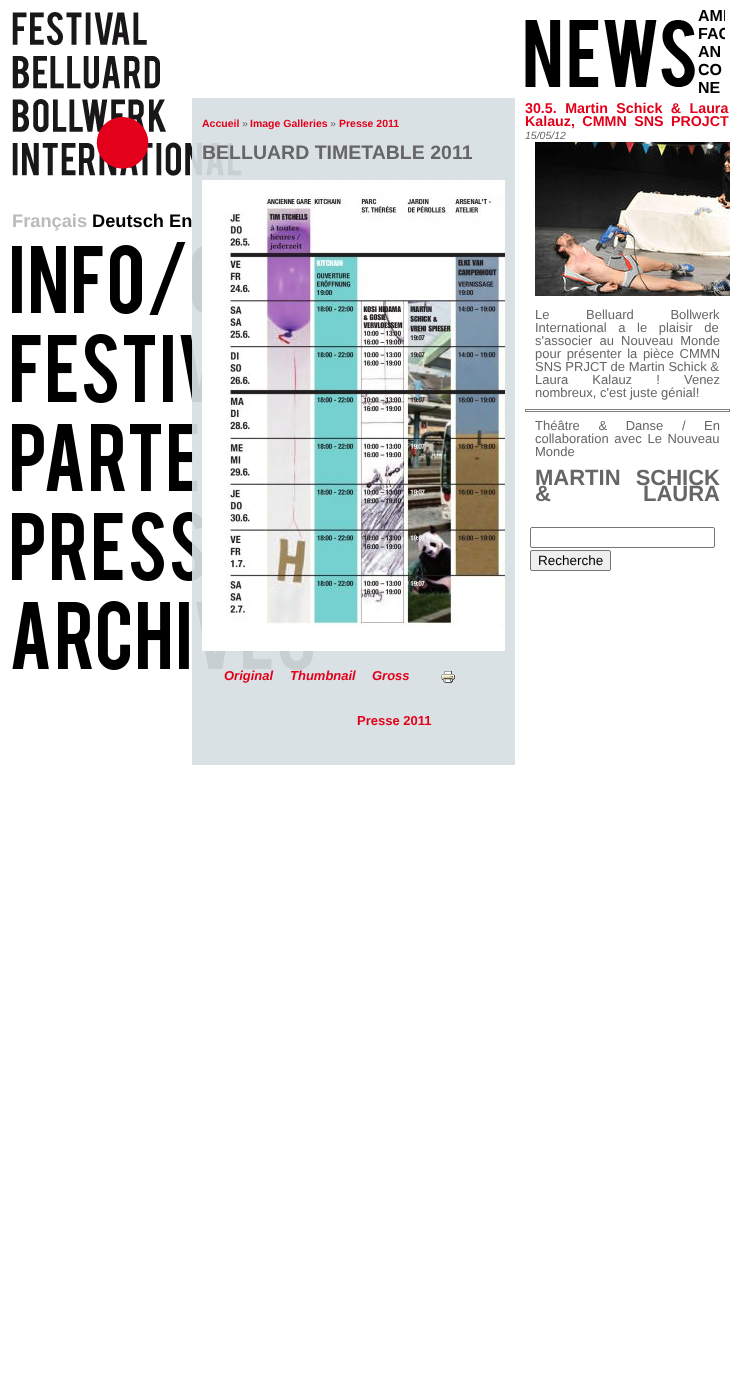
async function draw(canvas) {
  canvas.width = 738;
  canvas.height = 1390;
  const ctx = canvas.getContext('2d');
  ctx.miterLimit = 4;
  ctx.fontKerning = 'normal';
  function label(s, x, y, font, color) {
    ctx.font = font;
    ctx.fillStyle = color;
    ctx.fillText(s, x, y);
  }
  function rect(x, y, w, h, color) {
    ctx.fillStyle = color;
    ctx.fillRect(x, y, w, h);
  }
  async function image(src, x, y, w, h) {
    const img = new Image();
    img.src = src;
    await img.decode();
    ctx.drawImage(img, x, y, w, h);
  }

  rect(0, 0, 738, 1390, '#fff');
  await image('assets/img1.png', 12, 12, 230, 164);
  label('Français', 12, 227, 'bold 18.25px Liberation Sans', '#bbb');
  label('Deutsch En', 92, 227, 'bold 18.25px Liberation Sans', '#000');
  await image('assets/img2.png', 12, 242, 190, 73);
  await image('assets/img3.png', 12, 334, 190, 69);
  await image('assets/img4.png', 12, 424, 186, 67);
  await image('assets/img5.png', 12, 512, 190, 69);
  await image('assets/img6.png', 12, 601, 301, 69);
  rect(192, 98, 323, 667, '#d7dfe3ed');
  label('Accueil', 202, 127, 'bold 10.5px Liberation Sans', '#e2001a');
  label('»', 242, 127, '10.5px Liberation Sans', '#666');
  label('Image Galleries', 250, 127, 'bold 10.5px Liberation Sans', '#e2001a');
  label('»', 330, 127, '10.5px Liberation Sans', '#666');
  label('Presse 2011', 339, 127, 'bold 10.5px Liberation Sans', '#e2001a');
  label('BELLUARD TIMETABLE 2011', 202, 159, 'bold 19.5px Liberation Sans', '#666');
  await image('assets/img7.png', 202, 180, 303, 471);
  label('Original', 224, 680, 'italic bold 13px Liberation Sans', '#e2001a');
  label('Thumbnail', 290, 680, 'italic bold 13px Liberation Sans', '#e2001a');
  label('Gross', 372, 680, 'italic bold 13px Liberation Sans', '#e2001a');
  await image('assets/img8.png', 441, 671, 14, 12);
  label('Presse 2011', 357, 725, 'bold 13px Liberation Sans', '#e2001a');
  await image('assets/img9.png', 525, 20, 170, 67);
  ctx.save();
  ctx.beginPath();
  ctx.rect(685, 5, 40, 94);
  ctx.clip();
  label('AMI', 698, 21, 'bold 16px Liberation Sans', '#000');
  label('FAC', 698, 39, 'bold 16px Liberation Sans', '#000');
  ctx.restore();
  label('AN', 698, 57, 'bold 16px Liberation Sans', '#000');
  label('CO', 698, 75, 'bold 16px Liberation Sans', '#000');
  label('NE', 698, 93, 'bold 16px Liberation Sans', '#000');
  ctx.wordSpacing = '4.5px';
  label('30.5. Martin Schick & Laura', 525, 113, 'bold 14.25px Liberation Sans', '#e2001a');
  ctx.wordSpacing = '3.5px';
  label('Kalauz, CMMN SNS PROJCT', 525, 126, 'bold 14.25px Liberation Sans', '#e2001a');
  ctx.wordSpacing = '0px';
  label('15/05/12', 525, 139, 'italic 10.5px Liberation Sans', '#666');
  await image('assets/img10.png', 535, 142, 195, 154);
  ctx.wordSpacing = '33px';
  label('Le Belluard Bollwerk', 535, 319, '13px Liberation Sans', '#666');
  ctx.wordSpacing = '8px';
  label('International a le plaisir de', 535, 332, '13px Liberation Sans', '#666');
  ctx.wordSpacing = '3.5px';
  label('s\'associer au Nouveau Monde', 535, 345, '13px Liberation Sans', '#666');
  ctx.wordSpacing = '2px';
  label('pour présenter la pièce CMMN', 535, 358, '13px Liberation Sans', '#666');
  ctx.wordSpacing = '0px';
  label('SNS PRJCT de Martin Schick &', 535, 371, '13px Liberation Sans', '#666');
  ctx.wordSpacing = '20.5px';
  label('Laura Kalauz ! Venez', 535, 384, '13px Liberation Sans', '#666');
  ctx.wordSpacing = '0px';
  label('nombreux, c\'est juste génial!', 535, 397, '13px Liberation Sans', '#666');
  ctx.strokeStyle = '#808080';
  ctx.strokeRect(525.5, 409.5, 204, 2);
  ctx.wordSpacing = '15px';
  label('Théâtre & Danse / En', 535, 430, '13px Liberation Sans', '#666');
  ctx.wordSpacing = '2px';
  label('collaboration avec Le Nouveau', 535, 443, '13px Liberation Sans', '#666');
  ctx.wordSpacing = '0px';
  label('Monde', 535, 456, '13px Liberation Sans', '#666');
  ctx.wordSpacing = '9px';
  label('MARTIN SCHICK', 535, 485, 'bold 22px Liberation Sans', '#666');
  ctx.wordSpacing = '86px';
  label('& LAURA', 535, 501, 'bold 22px Liberation Sans', '#666');
  ctx.beginPath();
  ctx.roundRect(530.5, 527.5, 184, 20, 1.5);
  ctx.strokeStyle = '#767676';
  ctx.stroke();
  ctx.fillStyle = '#efefef';
  ctx.beginPath();
  ctx.roundRect(530.5, 550.5, 80, 20, 1.5);
  ctx.fill();
  ctx.stroke();
  ctx.wordSpacing = '0px';
  label('Recherche', 538, 565, '13.5px Liberation Sans', '#000');
}

draw(document.querySelector('canvas'));
